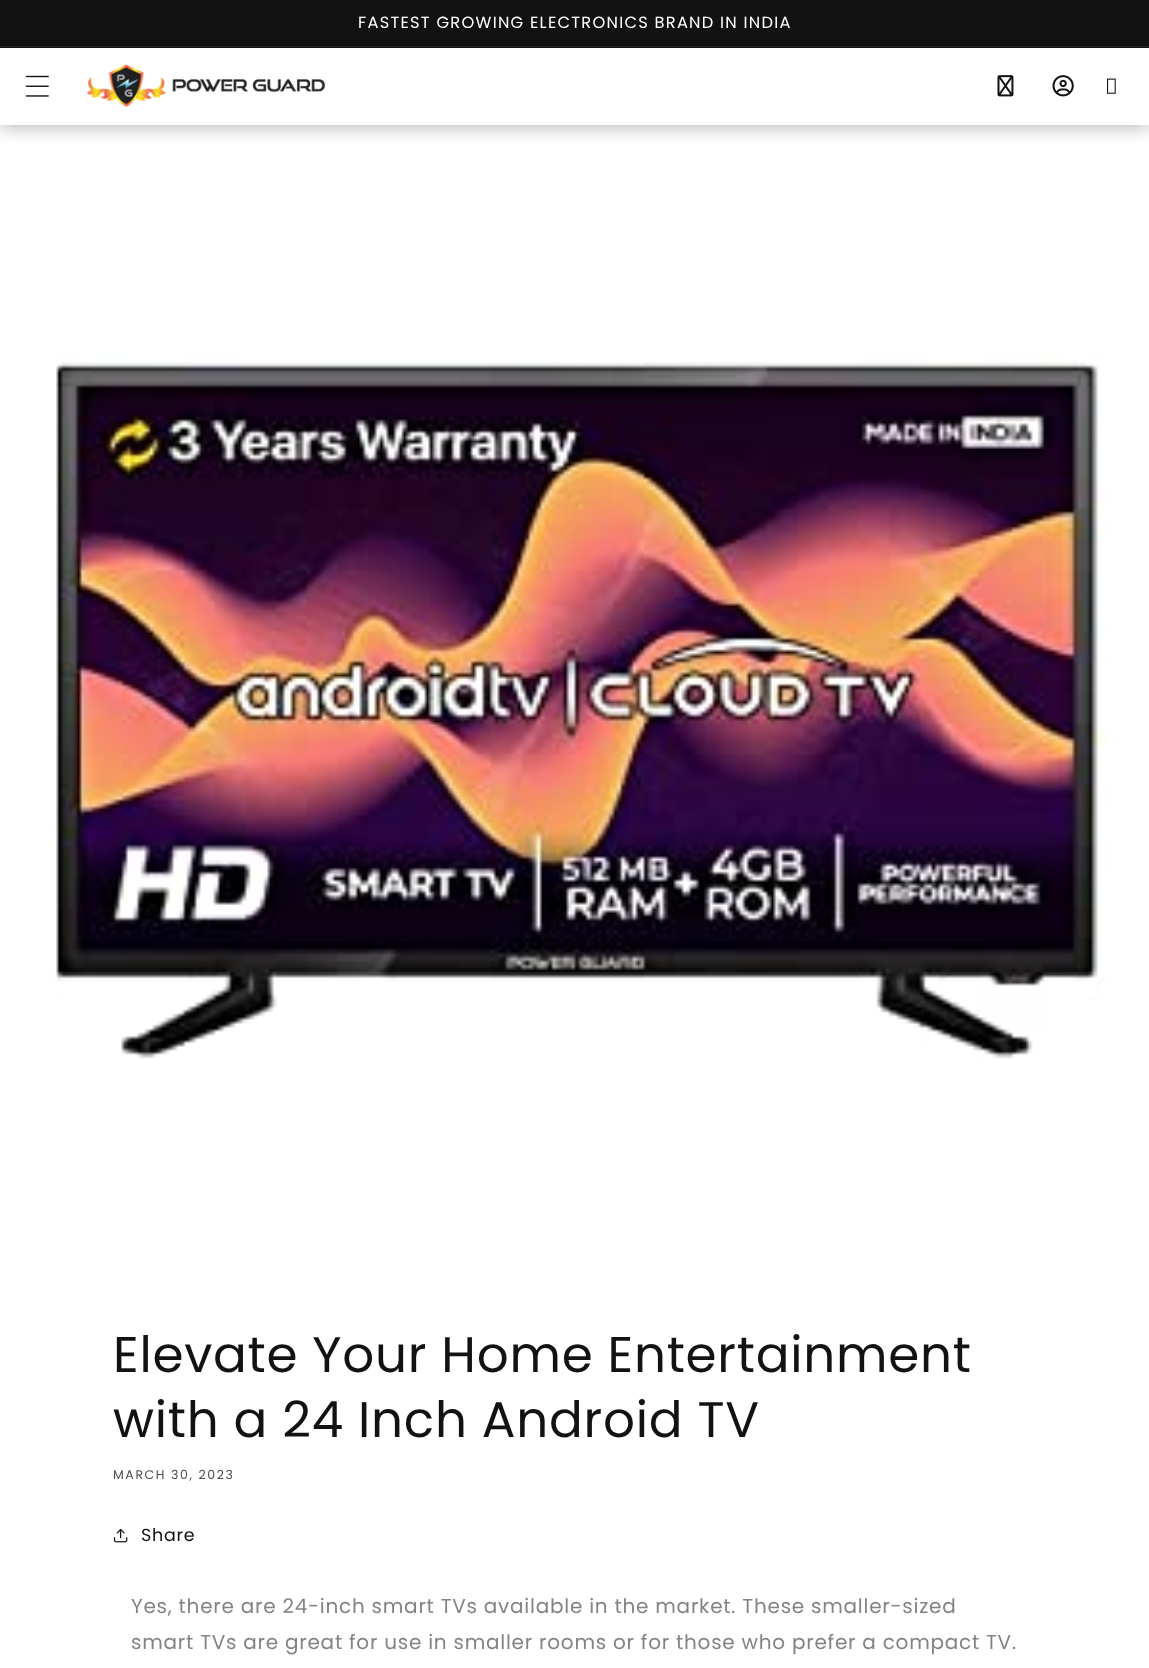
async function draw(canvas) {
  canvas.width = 1149;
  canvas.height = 1668;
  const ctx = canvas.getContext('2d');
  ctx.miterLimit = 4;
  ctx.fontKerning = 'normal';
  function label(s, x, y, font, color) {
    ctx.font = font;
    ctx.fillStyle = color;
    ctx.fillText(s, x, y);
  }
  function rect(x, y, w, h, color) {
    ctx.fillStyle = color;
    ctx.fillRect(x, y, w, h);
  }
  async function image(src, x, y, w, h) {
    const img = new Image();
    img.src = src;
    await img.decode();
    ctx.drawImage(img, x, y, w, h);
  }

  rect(0, 0, 1149, 1668, '#fff');
  await image('assets/img6.png', 0, 110, 1149, 1150);
  ctx.save();
  ctx.beginPath();
  ctx.rect(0, 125, 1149, 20);
  ctx.clip();
  ctx.fillStyle = '#adadad';
  ctx.filter = 'blur(9.5px)';
  ctx.beginPath();
  ctx.rect(0, 49, 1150, 77);
  ctx.fill();
  ctx.filter = 'none';
  ctx.restore();
  rect(0, 0, 1149, 48, '#121212');
  rect(0, 46, 1149, 1, '#252525');
  ctx.letterSpacing = '1.25px';
  label('FASTEST GROWING ELECTRONICS BRAND IN INDIA', 358, 28, '16.25px Poppins', '#fff');
  await image('assets/img1.png', 25, 75, 24, 22);
  await image('assets/img2.png', 87, 64, 239, 43);
  await image('assets/img3.png', 997, 75, 17, 22);
  await image('assets/img4.png', 1052, 75, 22, 22);
  await image('assets/img5.png', 1107, 78, 9, 16);
  ctx.letterSpacing = '0.75px';
  label('Elevate Your Home Entertainment', 113, 1372, '50px Poppins', '#121212');
  label('with a 24 Inch Android TV', 113, 1437, '50px Poppins', '#121212');
  ctx.letterSpacing = '1.6px';
  label('MARCH 30, 2023', 113, 1479, '12.5px Poppins', '#4d4d4d');
  await image('assets/img7.png', 113, 1528, 15, 15);
  ctx.letterSpacing = '0.75px';
  label('Share', 141, 1541, '17.5px Poppins', '#121212');
  label('Yes, there are 24-inch smart TVs available in the market. These smaller-sized', 131, 1613, '20px Poppins', '#838383');
  label('smart TVs are great for use in smaller rooms or for those who prefer a compact TV.', 131, 1649, '20px Poppins', '#838383');
}

draw(document.querySelector('canvas'));
